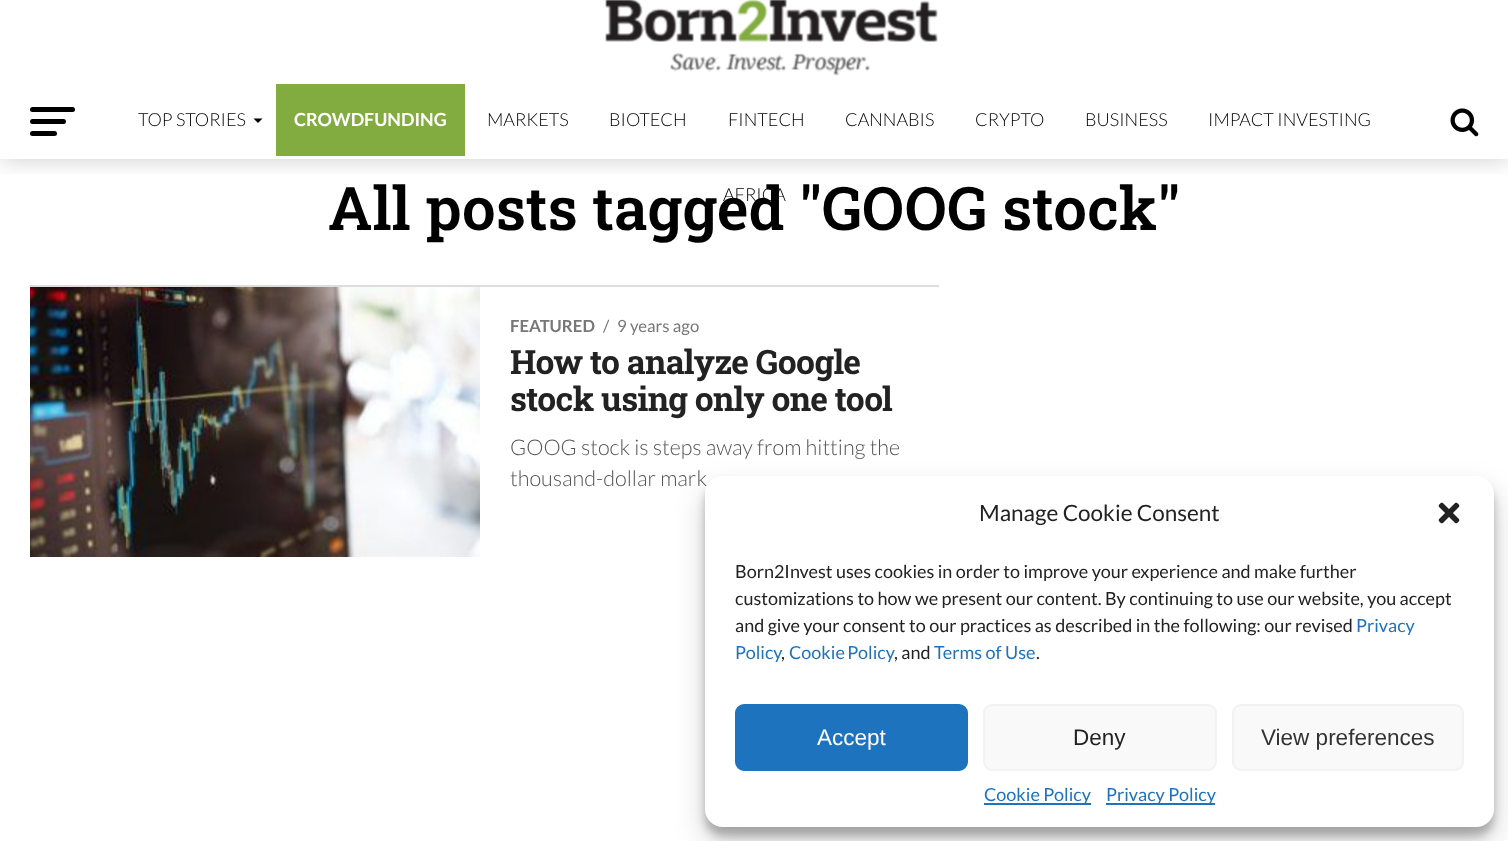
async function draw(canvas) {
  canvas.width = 1508;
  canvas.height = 841;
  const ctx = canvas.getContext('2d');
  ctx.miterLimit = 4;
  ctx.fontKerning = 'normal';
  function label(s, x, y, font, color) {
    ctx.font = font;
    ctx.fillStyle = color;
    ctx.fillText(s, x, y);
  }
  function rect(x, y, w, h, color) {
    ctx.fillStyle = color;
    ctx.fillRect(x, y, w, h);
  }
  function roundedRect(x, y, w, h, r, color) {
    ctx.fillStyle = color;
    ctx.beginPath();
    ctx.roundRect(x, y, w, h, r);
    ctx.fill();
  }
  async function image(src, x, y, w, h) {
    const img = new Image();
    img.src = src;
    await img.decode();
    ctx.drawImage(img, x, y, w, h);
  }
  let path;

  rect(0, 0, 1508, 841, '#fff');
  ctx.save();
  ctx.beginPath();
  ctx.rect(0, 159, 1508, 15);
  ctx.clip();
  ctx.fillStyle = '#00000033';
  ctx.filter = 'blur(12px)';
  ctx.beginPath();
  ctx.rect(0, 84, 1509, 75);
  ctx.fill();
  ctx.filter = 'none';
  ctx.restore();
  rect(0, 64, 1508, 20, '#fff');
  await image('assets/img1.png', 605, 0, 333, 76);
  roundedRect(30, 107, 45, 5, 2.5, '#000');
  roundedRect(30, 119, 36, 5, 2.5, '#000');
  roundedRect(30, 131, 27, 5, 2.5, '#000');
  label('TOP STORIES', 138, 126, '300 18px Lato', '#000');
  path = new Path2D('M253.5 118.5H262.5L258 123Z');
  ctx.fill(path);
  rect(276, 84, 189, 72, '#82ab40');
  label('CROWDFUNDING', 294, 126, 'bold 18px Lato', '#fff');
  label('MARKETS', 487, 126, '300 18px Lato', '#000');
  label('BIOTECH', 609, 126, '300 18px Lato', '#000');
  label('FINTECH', 728, 126, '300 18px Lato', '#000');
  label('CANNABIS', 845, 126, '300 18px Lato', '#000');
  label('CRYPTO', 975, 126, '300 18px Lato', '#000');
  label('BUSINESS', 1085, 126, '300 18px Lato', '#000');
  label('IMPACT INVESTING', 1208, 126, '300 18px Lato', '#000');
  label('All posts tagged "GOOG stock"', 328, 230, '600 60px Roboto Slab', '#000');
  label('AFRICA', 723, 201, '300 18px Lato', '#000');
  await image('assets/img2.png', 1450, 108, 29, 29);
  rect(30, 285, 909, 2, '#ddd');
  await image('assets/img3.png', 30, 287, 450, 270);
  label('FEATURED', 510, 332, 'bold 16.75px Lato', '#777');
  label('/', 603, 332, '16.75px Lato', '#777');
  label('9 years ago', 617, 332, '16.75px Lato', '#777');
  ctx.letterSpacing = '-0.7px';
  label('How to analyze Google', 510, 374, 'bold 33.6px Roboto Slab', '#222');
  label('stock using only one tool', 510, 411, 'bold 33.6px Roboto Slab', '#222');
  ctx.letterSpacing = '0px';
  label('GOOG stock is steps away from hitting the', 510, 455, '300 21.6px Lato', '#555');
  label('thousand-dollar mark', 510, 486, '300 21.6px Lato', '#555');
  ctx.fillStyle = '#0000003b';
  ctx.filter = 'blur(4.5px)';
  ctx.beginPath();
  ctx.roundRect(705, 485, 789, 351, 18);
  ctx.fill();
  ctx.filter = 'none';
  ctx.fillStyle = '#00000030';
  ctx.filter = 'blur(15px)';
  ctx.beginPath();
  ctx.roundRect(705, 491, 789, 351, 18);
  ctx.fill();
  ctx.filter = 'none';
  roundedRect(705, 476, 789, 351, 18, '#fff');
  label('Manage Cookie Consent', 979, 521, '22.5px Lato', '#222');
  await image('assets/img4.png', 1438, 502, 22, 22);
  label('Born2Invest uses cookies in order to improve your experience and make further', 735, 578, '18px Lato', '#222');
  label('customizations to how we present our content. By continuing to use our website, you accept', 735, 605, '18px Lato', '#222');
  label('and give your consent to our practices as described in the following: our revised', 735, 632, '18px Lato', '#222');
  label('Privacy', 1356, 632, '18px Lato', '#1e73be');
  label('Policy', 735, 659, '18px Lato', '#1e73be');
  label(',', 781, 659, '18px Lato', '#222');
  ctx.wordSpacing = '-1px';
  label('Cookie Policy', 789, 659, '18px Lato', '#1e73be');
  ctx.wordSpacing = '0px';
  label(', and', 894, 659, '18px Lato', '#222');
  label('Terms of Use', 934, 659, '18px Lato', '#1e73be');
  label('.', 1036, 659, '18px Lato', '#222');
  ctx.fillStyle = '#1e73be';
  ctx.beginPath();
  ctx.roundRect(736, 705, 231, 65, 8);
  ctx.fill();
  ctx.strokeStyle = '#1e73be';
  ctx.lineWidth = 2;
  ctx.stroke();
  label('Accept', 817, 745, '22.5px Liberation Sans', '#fff');
  ctx.fillStyle = '#f9f9f9';
  ctx.beginPath();
  ctx.roundRect(984, 705, 232, 65, 8);
  ctx.fill();
  ctx.strokeStyle = '#f2f2f2';
  ctx.stroke();
  label('Deny', 1073, 745, '22.5px Liberation Sans', '#222');
  ctx.fillStyle = '#f9f9f9';
  ctx.beginPath();
  ctx.roundRect(1233, 705, 230, 65, 8);
  ctx.fill();
  ctx.stroke();
  label('View preferences', 1261, 745, '22.5px Liberation Sans', '#333');
  rect(984, 803, 107, 2, '#1e73be');
  label('Cookie Policy', 984, 801, '18px Lato', '#1e73be');
  rect(1106, 803, 109, 2, '#1e73be');
  label('Privacy Policy', 1106, 801, '18px Lato', '#1e73be');
}

draw(document.querySelector('canvas'));
